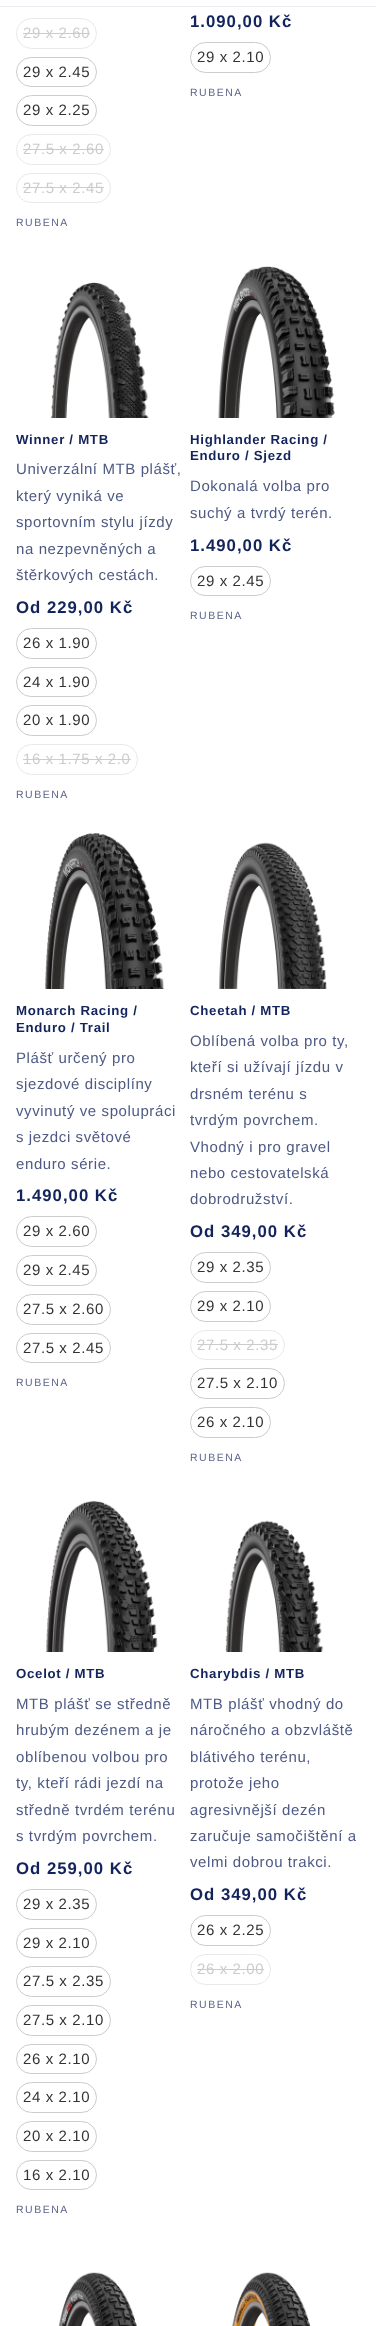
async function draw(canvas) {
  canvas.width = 376;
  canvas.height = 2326;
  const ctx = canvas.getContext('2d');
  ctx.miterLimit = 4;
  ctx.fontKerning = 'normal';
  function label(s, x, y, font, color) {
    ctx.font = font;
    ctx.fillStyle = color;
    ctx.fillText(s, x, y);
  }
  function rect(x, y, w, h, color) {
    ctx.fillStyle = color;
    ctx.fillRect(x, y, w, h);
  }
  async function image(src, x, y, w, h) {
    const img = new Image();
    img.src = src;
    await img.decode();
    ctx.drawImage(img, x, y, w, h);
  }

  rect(0, 0, 376, 2326, '#fff');
  rect(0, 6, 376, 1, '#ecedf2');
  ctx.beginPath();
  ctx.roundRect(16.5, 18.5, 80, 30, 15);
  ctx.strokeStyle = '#e9e9e9';
  ctx.stroke();
  ctx.letterSpacing = '0.6px';
  label('29 x 2.60', 23, 38, '15px Arimo', '#ccc');
  rect(23, 33, 67, 1, '#ccc');
  ctx.beginPath();
  ctx.roundRect(16.5, 57.5, 80, 29, 14.5);
  ctx.strokeStyle = '#ccc';
  ctx.stroke();
  label('29 x 2.45', 23, 77, '15px Arimo', '#333');
  ctx.beginPath();
  ctx.roundRect(16.5, 95.5, 80, 30, 15);
  ctx.stroke();
  label('29 x 2.25', 23, 115, '15px Arimo', '#333');
  ctx.beginPath();
  ctx.roundRect(16.5, 134.5, 94, 30, 15);
  ctx.strokeStyle = '#e9e9e9';
  ctx.stroke();
  label('27.5 x 2.60', 23, 154, '15px Arimo', '#ccc');
  rect(23, 149, 81, 1, '#ccc');
  ctx.beginPath();
  ctx.roundRect(16.5, 173.5, 94, 29, 14.5);
  ctx.stroke();
  label('27.5 x 2.45', 23, 193, '15px Arimo', '#ccc');
  rect(23, 187, 81, 1, '#ccc');
  ctx.letterSpacing = '1.5px';
  label('RUBENA', 16, 226, '10.5px Arimo', '#5a658c');
  ctx.letterSpacing = '1px';
  label('1.090,00 Kč', 190, 27, 'bold 16.75px Arimo', '#13235b');
  ctx.beginPath();
  ctx.roundRect(190.5, 42.5, 80, 30, 15);
  ctx.strokeStyle = '#ccc';
  ctx.stroke();
  ctx.letterSpacing = '0.6px';
  label('29 x 2.10', 197, 62, '15px Arimo', '#333');
  ctx.letterSpacing = '1.5px';
  label('RUBENA', 190, 96, '10.5px Arimo', '#5a658c');
  await image('assets/img1.png', 51, 282, 98, 136);
  ctx.letterSpacing = '0.7px';
  label('Winner / MTB', 16, 444, 'bold 13.25px Arimo', '#13235b');
  ctx.letterSpacing = '0.6px';
  label('Univerzální MTB plášť,', 16, 474, '15px Arimo', '#4e5a84');
  label('který vyniká ve', 16, 501, '15px Arimo', '#4e5a84');
  label('sportovním stylu jízdy', 16, 527, '15px Arimo', '#4e5a84');
  label('na nezpevněných a', 16, 554, '15px Arimo', '#4e5a84');
  label('štěrkových cestách.', 16, 580, '15px Arimo', '#4e5a84');
  ctx.letterSpacing = '1px';
  label('Od 229,00 Kč', 16, 613, 'bold 16.75px Arimo', '#13235b');
  ctx.beginPath();
  ctx.roundRect(16.5, 628.5, 80, 30, 15);
  ctx.stroke();
  ctx.letterSpacing = '0.6px';
  label('26 x 1.90', 23, 648, '15px Arimo', '#333');
  ctx.beginPath();
  ctx.roundRect(16.5, 667.5, 80, 29, 14.5);
  ctx.stroke();
  label('24 x 1.90', 23, 687, '15px Arimo', '#333');
  ctx.beginPath();
  ctx.roundRect(16.5, 705.5, 80, 30, 15);
  ctx.stroke();
  label('20 x 1.90', 23, 725, '15px Arimo', '#333');
  ctx.beginPath();
  ctx.roundRect(16.5, 744.5, 121, 30, 15);
  ctx.strokeStyle = '#e9e9e9';
  ctx.stroke();
  label('16 x 1.75 x 2.0', 23, 764, '15px Arimo', '#ccc');
  rect(23, 759, 108, 1, '#ccc');
  ctx.letterSpacing = '1.5px';
  label('RUBENA', 16, 798, '10.5px Arimo', '#5a658c');
  await image('assets/img2.png', 218, 266, 117, 152);
  ctx.letterSpacing = '0.7px';
  label('Highlander Racing /', 190, 444, 'bold 13.25px Arimo', '#13235b');
  label('Enduro / Sjezd', 190, 460, 'bold 13.25px Arimo', '#13235b');
  ctx.letterSpacing = '0.6px';
  label('Dokonalá volba pro', 190, 491, '15px Arimo', '#4e5a84');
  label('suchý a tvrdý terén.', 190, 518, '15px Arimo', '#4e5a84');
  ctx.letterSpacing = '1px';
  label('1.490,00 Kč', 190, 551, 'bold 16.75px Arimo', '#13235b');
  ctx.beginPath();
  ctx.roundRect(190.5, 566.5, 80, 29, 14.5);
  ctx.strokeStyle = '#ccc';
  ctx.stroke();
  ctx.letterSpacing = '0.6px';
  label('29 x 2.45', 197, 586, '15px Arimo', '#333');
  ctx.letterSpacing = '1.5px';
  label('RUBENA', 190, 619, '10.5px Arimo', '#5a658c');
  await image('assets/img3.png', 45, 833, 120, 156);
  ctx.letterSpacing = '0.7px';
  label('Monarch Racing /', 16, 1015, 'bold 13.25px Arimo', '#13235b');
  label('Enduro / Trail', 16, 1032, 'bold 13.25px Arimo', '#13235b');
  ctx.letterSpacing = '0.6px';
  label('Plášť určený pro', 16, 1063, '15px Arimo', '#4e5a84');
  label('sjezdové disciplíny', 16, 1089, '15px Arimo', '#4e5a84');
  label('vyvinutý ve spolupráci', 16, 1116, '15px Arimo', '#4e5a84');
  label('s jezdci světové', 16, 1142, '15px Arimo', '#4e5a84');
  label('enduro série.', 16, 1169, '15px Arimo', '#4e5a84');
  ctx.letterSpacing = '1px';
  label('1.490,00 Kč', 16, 1201, 'bold 16.75px Arimo', '#13235b');
  ctx.beginPath();
  ctx.roundRect(16.5, 1216.5, 80, 30, 15);
  ctx.stroke();
  ctx.letterSpacing = '0.6px';
  label('29 x 2.60', 23, 1236, '15px Arimo', '#333');
  ctx.beginPath();
  ctx.roundRect(16.5, 1255.5, 80, 30, 15);
  ctx.stroke();
  label('29 x 2.45', 23, 1275, '15px Arimo', '#333');
  ctx.beginPath();
  ctx.roundRect(16.5, 1294.5, 94, 30, 15);
  ctx.stroke();
  label('27.5 x 2.60', 23, 1314, '15px Arimo', '#333');
  ctx.beginPath();
  ctx.roundRect(16.5, 1333.5, 94, 29, 14.5);
  ctx.stroke();
  label('27.5 x 2.45', 23, 1353, '15px Arimo', '#333');
  ctx.letterSpacing = '1.5px';
  label('RUBENA', 16, 1386, '10.5px Arimo', '#5a658c');
  await image('assets/img4.png', 218, 842, 109, 147);
  ctx.letterSpacing = '0.7px';
  label('Cheetah / MTB', 190, 1015, 'bold 13.25px Arimo', '#13235b');
  ctx.letterSpacing = '0.6px';
  label('Oblíbená volba pro ty,', 190, 1046, '15px Arimo', '#4e5a84');
  label('kteří si užívají jízdu v', 190, 1072, '15px Arimo', '#4e5a84');
  label('drsném terénu s', 190, 1099, '15px Arimo', '#4e5a84');
  label('tvrdým povrchem.', 190, 1125, '15px Arimo', '#4e5a84');
  label('Vhodný i pro gravel', 190, 1152, '15px Arimo', '#4e5a84');
  label('nebo cestovatelská', 190, 1178, '15px Arimo', '#4e5a84');
  label('dobrodružství.', 190, 1204, '15px Arimo', '#4e5a84');
  ctx.letterSpacing = '1px';
  label('Od 349,00 Kč', 190, 1237, 'bold 16.75px Arimo', '#13235b');
  ctx.beginPath();
  ctx.roundRect(190.5, 1252.5, 80, 30, 15);
  ctx.stroke();
  ctx.letterSpacing = '0.6px';
  label('29 x 2.35', 197, 1272, '15px Arimo', '#333');
  ctx.beginPath();
  ctx.roundRect(190.5, 1291.5, 80, 30, 15);
  ctx.stroke();
  label('29 x 2.10', 197, 1311, '15px Arimo', '#333');
  ctx.beginPath();
  ctx.roundRect(190.5, 1330.5, 94, 29, 14.5);
  ctx.strokeStyle = '#e9e9e9';
  ctx.stroke();
  label('27.5 x 2.35', 197, 1350, '15px Arimo', '#ccc');
  rect(197, 1344, 81, 1, '#ccc');
  ctx.beginPath();
  ctx.roundRect(190.5, 1368.5, 94, 30, 15);
  ctx.strokeStyle = '#ccc';
  ctx.stroke();
  label('27.5 x 2.10', 197, 1388, '15px Arimo', '#333');
  ctx.beginPath();
  ctx.roundRect(190.5, 1407.5, 80, 30, 15);
  ctx.stroke();
  label('26 x 2.10', 197, 1427, '15px Arimo', '#333');
  ctx.letterSpacing = '1.5px';
  label('RUBENA', 190, 1461, '10.5px Arimo', '#5a658c');
  await image('assets/img5.png', 46, 1500, 112, 152);
  ctx.letterSpacing = '0.7px';
  label('Ocelot / MTB', 16, 1678, 'bold 13.25px Arimo', '#13235b');
  ctx.letterSpacing = '0.6px';
  label('MTB plášť se středně', 16, 1709, '15px Arimo', '#4e5a84');
  label('hrubým dezénem a je', 16, 1735, '15px Arimo', '#4e5a84');
  label('oblíbenou volbou pro', 16, 1762, '15px Arimo', '#4e5a84');
  label('ty, kteří rádi jezdí na', 16, 1788, '15px Arimo', '#4e5a84');
  label('středně tvrdém terénu', 16, 1815, '15px Arimo', '#4e5a84');
  label('s tvrdým povrchem.', 16, 1841, '15px Arimo', '#4e5a84');
  ctx.letterSpacing = '1px';
  label('Od 259,00 Kč', 16, 1874, 'bold 16.75px Arimo', '#13235b');
  ctx.beginPath();
  ctx.roundRect(16.5, 1889.5, 80, 30, 15);
  ctx.stroke();
  ctx.letterSpacing = '0.6px';
  label('29 x 2.35', 23, 1909, '15px Arimo', '#333');
  ctx.beginPath();
  ctx.roundRect(16.5, 1928.5, 80, 29, 14.5);
  ctx.stroke();
  label('29 x 2.10', 23, 1948, '15px Arimo', '#333');
  ctx.beginPath();
  ctx.roundRect(16.5, 1966.5, 94, 30, 15);
  ctx.stroke();
  label('27.5 x 2.35', 23, 1986, '15px Arimo', '#333');
  ctx.beginPath();
  ctx.roundRect(16.5, 2005.5, 94, 30, 15);
  ctx.stroke();
  label('27.5 x 2.10', 23, 2025, '15px Arimo', '#333');
  ctx.beginPath();
  ctx.roundRect(16.5, 2044.5, 80, 29, 14.5);
  ctx.stroke();
  label('26 x 2.10', 23, 2064, '15px Arimo', '#333');
  ctx.beginPath();
  ctx.roundRect(16.5, 2082.5, 80, 30, 15);
  ctx.stroke();
  label('24 x 2.10', 23, 2102, '15px Arimo', '#333');
  ctx.beginPath();
  ctx.roundRect(16.5, 2121.5, 80, 30, 15);
  ctx.stroke();
  label('20 x 2.10', 23, 2141, '15px Arimo', '#333');
  ctx.beginPath();
  ctx.roundRect(16.5, 2160.5, 80, 29, 14.5);
  ctx.stroke();
  label('16 x 2.10', 23, 2180, '15px Arimo', '#333');
  ctx.letterSpacing = '1.5px';
  label('RUBENA', 16, 2213, '10.5px Arimo', '#5a658c');
  await image('assets/img6.png', 225, 1520, 99, 132);
  ctx.letterSpacing = '0.7px';
  label('Charybdis / MTB', 190, 1678, 'bold 13.25px Arimo', '#13235b');
  ctx.letterSpacing = '0.6px';
  label('MTB plášť vhodný do', 190, 1709, '15px Arimo', '#4e5a84');
  label('náročného a obzvláště', 190, 1735, '15px Arimo', '#4e5a84');
  label('blátivého terénu,', 190, 1762, '15px Arimo', '#4e5a84');
  label('protože jeho', 190, 1788, '15px Arimo', '#4e5a84');
  label('agresivnější dezén', 190, 1815, '15px Arimo', '#4e5a84');
  label('zaručuje samočištění a', 190, 1841, '15px Arimo', '#4e5a84');
  label('velmi dobrou trakci.', 190, 1867, '15px Arimo', '#4e5a84');
  ctx.letterSpacing = '1px';
  label('Od 349,00 Kč', 190, 1900, 'bold 16.75px Arimo', '#13235b');
  ctx.beginPath();
  ctx.roundRect(190.5, 1915.5, 80, 30, 15);
  ctx.stroke();
  ctx.letterSpacing = '0.6px';
  label('26 x 2.25', 197, 1935, '15px Arimo', '#333');
  ctx.beginPath();
  ctx.roundRect(190.5, 1954.5, 80, 30, 15);
  ctx.strokeStyle = '#e9e9e9';
  ctx.stroke();
  label('26 x 2.00', 197, 1974, '15px Arimo', '#ccc');
  rect(197, 1969, 67, 1, '#ccc');
  ctx.letterSpacing = '1.5px';
  label('RUBENA', 190, 2008, '10.5px Arimo', '#5a658c');
  await image('assets/img7.png', 58, 2272, 79, 54);
  await image('assets/img8.png', 232, 2272, 79, 54);
}

draw(document.querySelector('canvas'));
